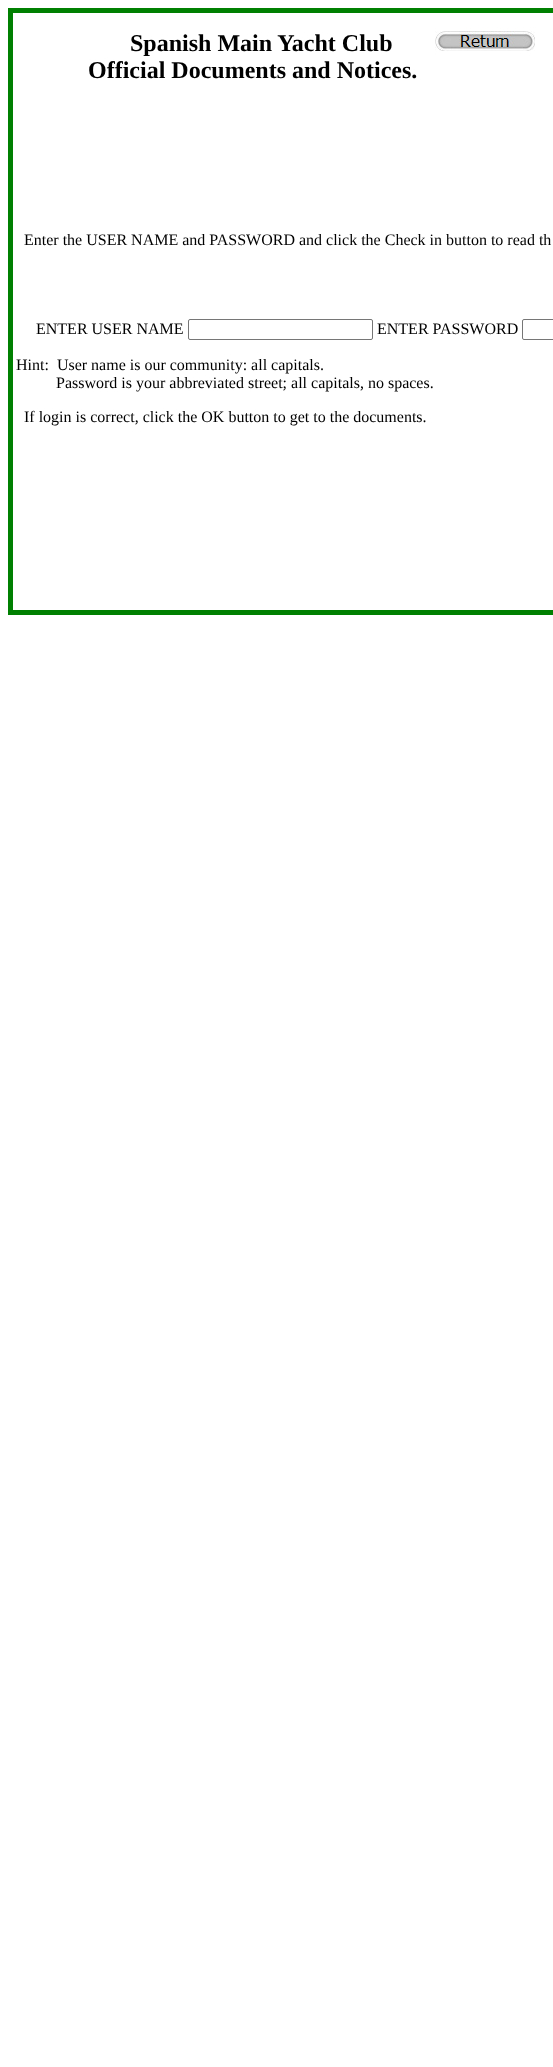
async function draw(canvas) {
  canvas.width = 553;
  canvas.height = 2067;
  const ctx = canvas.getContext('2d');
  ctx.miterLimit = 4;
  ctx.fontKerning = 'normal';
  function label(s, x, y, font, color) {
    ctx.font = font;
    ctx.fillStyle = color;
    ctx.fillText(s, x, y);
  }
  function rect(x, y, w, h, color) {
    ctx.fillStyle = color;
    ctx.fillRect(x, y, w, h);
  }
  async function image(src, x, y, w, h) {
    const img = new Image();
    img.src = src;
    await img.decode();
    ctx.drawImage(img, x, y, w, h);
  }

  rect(0, 0, 553, 2067, '#fff');
  ctx.strokeStyle = '#008000';
  ctx.lineWidth = 5;
  ctx.strokeRect(10.5, 10.5, 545, 602);
  label('Spanish Main Yacht Club', 130, 51, 'bold 24px Liberation Serif', '#000');
  await image('assets/img1.png', 435, 31, 100, 20);
  label('Official Documents and Notices.', 88, 78, 'bold 24px Liberation Serif', '#000');
  label('Enter the USER NAME and PASSWORD and click the Check in button to read th', 24, 245, '16px Liberation Serif', '#000');
  label('ENTER USER NAME', 36, 334, '16px Liberation Serif', '#000');
  ctx.beginPath();
  ctx.roundRect(188.5, 319.5, 184, 20, 1.5);
  ctx.strokeStyle = '#767676';
  ctx.lineWidth = 1;
  ctx.stroke();
  label('ENTER PASSWORD', 377, 334, '16px Liberation Serif', '#000');
  ctx.beginPath();
  ctx.roundRect(522.5, 319.5, 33, 20, 1.5);
  ctx.stroke();
  label('Hint:  User name is our community: all capitals.', 16, 370, '16px Liberation Serif', '#000');
  label('Password is your abbreviated street; all capitals, no spaces.', 56, 388, '16px Liberation Serif', '#000');
  label('If login is correct, click the OK button to get to the documents.', 24, 422, '16px Liberation Serif', '#000');
}

draw(document.querySelector('canvas'));
